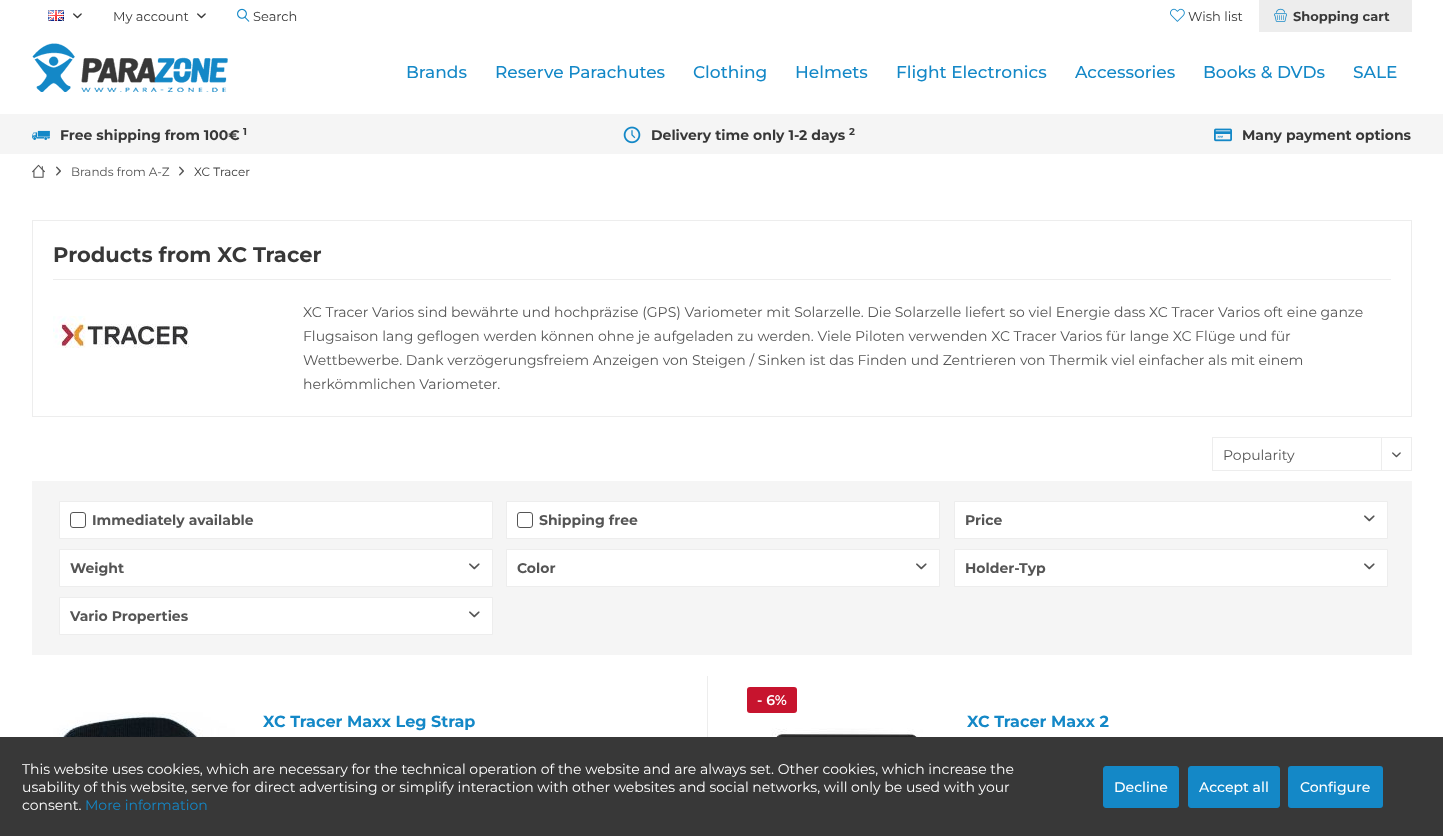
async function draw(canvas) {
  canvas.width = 1443;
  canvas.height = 836;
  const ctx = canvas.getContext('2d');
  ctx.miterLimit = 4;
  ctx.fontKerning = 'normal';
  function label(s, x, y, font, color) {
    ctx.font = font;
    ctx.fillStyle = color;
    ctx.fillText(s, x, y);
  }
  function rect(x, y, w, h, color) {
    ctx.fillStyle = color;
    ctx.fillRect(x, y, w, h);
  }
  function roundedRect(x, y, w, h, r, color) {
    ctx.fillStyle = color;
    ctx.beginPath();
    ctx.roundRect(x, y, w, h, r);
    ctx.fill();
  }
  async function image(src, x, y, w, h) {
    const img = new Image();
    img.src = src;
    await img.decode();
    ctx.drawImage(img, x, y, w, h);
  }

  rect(0, 0, 1443, 836, '#fff');
  await image('assets/img1.png', 48, 10, 16, 11);
  await image('assets/img2.png', 73, 13, 9, 6);
  label('My account', 113, 21, '13px Montserrat', '#383838');
  await image('assets/img2.png', 197, 13, 9, 6);
  await image('assets/img3.png', 237, 8, 13, 14);
  label('Search', 253, 21, '13px Montserrat', '#383838');
  await image('assets/img4.png', 1170, 8, 15, 14);
  label('Wish list', 1188, 21, '13px Montserrat', '#383838');
  rect(1259, 0, 153, 32, '#ededed');
  await image('assets/img5.png', 1274, 8, 13, 14);
  label('Shopping cart', 1293, 21, 'bold 13px Montserrat', '#383838');
  await image('assets/img6.png', 32, 43, 196, 49);
  label('Brands', 406, 78, '500 17px Montserrat', '#1488c7');
  label('Reserve Parachutes', 495, 78, '500 17px Montserrat', '#1488c7');
  label('Clothing', 693, 78, '500 17px Montserrat', '#1488c7');
  label('Helmets', 795, 78, '500 17px Montserrat', '#1488c7');
  label('Flight Electronics', 896, 78, '500 17px Montserrat', '#1488c7');
  label('Accessories', 1075, 78, '500 17px Montserrat', '#1488c7');
  label('Books & DVDs', 1203, 78, '500 17px Montserrat', '#1488c7');
  label('SALE', 1353, 78, '500 17px Montserrat', '#1488c7');
  rect(0, 114, 1443, 40, '#f5f5f5');
  await image('assets/img7.png', 32, 130, 18, 10);
  label('Free shipping from 100€', 60, 140, 'bold 14px Montserrat', '#383838');
  label('1', 243, 135, 'bold 10px Montserrat', '#383838');
  await image('assets/img8.png', 623, 126, 18, 18);
  label('Delivery time only 1-2 days', 651, 140, 'bold 14px Montserrat', '#383838');
  label('2', 849, 135, 'bold 10px Montserrat', '#383838');
  await image('assets/img9.png', 1214, 128, 18, 14);
  label('Many payment options', 1242, 140, 'bold 14px Montserrat', '#383838');
  await image('assets/img10.png', 32, 164, 13, 14);
  await image('assets/img11.png', 56, 166, 5, 10);
  label('Brands from A-Z', 71, 176, '12px Montserrat', '#555');
  await image('assets/img11.png', 179, 166, 5, 10);
  label('XC Tracer', 194, 176, '12px Montserrat', '#383838');
  ctx.strokeStyle = '#ededed';
  ctx.strokeRect(32.5, 220.5, 1379, 196);
  rect(53, 279, 1338, 1, '#ededed');
  label('Products from XC Tracer', 53, 262, 'bold 21px Montserrat', '#383838');
  await image('assets/img12.png', 53, 316, 136, 32);
  label('XC Tracer Varios sind bewährte und hochpräzise (GPS) Variometer mit Solarzelle. Die Solarzelle liefert so viel Energie dass XC Tracer Varios oft eine ganze', 303, 317, '14px Montserrat', '#555');
  label('Flugsaison lang geflogen werden können ohne je aufgeladen zu werden. Viele Piloten verwenden XC Tracer Varios für lange XC Flüge und für', 303, 341, '14px Montserrat', '#555');
  label('Wettbewerbe. Dank verzögerungsfreiem Anzeigen von Steigen / Sinken ist das Finden und Zentrieren von Thermik viel einfacher als mit einem', 303, 365, '14px Montserrat', '#555');
  label('herkömmlichen Variometer.', 303, 389, '14px Montserrat', '#555');
  ctx.strokeRect(1212.5, 437.5, 199, 33);
  label('Popularity', 1223, 460, '14px Montserrat', '#555');
  rect(1381, 438, 1, 33, '#ededed');
  await image('assets/img13.png', 1392, 452, 9, 6);
  rect(32, 481, 1380, 174, '#f5f5f5');
  ctx.fillStyle = '#fff';
  ctx.beginPath();
  ctx.rect(59.5, 501.5, 433, 37);
  ctx.fill();
  ctx.stroke();
  ctx.beginPath();
  ctx.roundRect(70.5, 512.5, 15, 15, 2.5);
  ctx.strokeStyle = '#555';
  ctx.stroke();
  label('Immediately available', 92, 525, 'bold 14px Montserrat', '#555');
  ctx.fillStyle = '#fff';
  ctx.beginPath();
  ctx.rect(506.5, 501.5, 433, 37);
  ctx.fill();
  ctx.strokeStyle = '#ededed';
  ctx.stroke();
  ctx.beginPath();
  ctx.roundRect(517.5, 512.5, 15, 15, 2.5);
  ctx.strokeStyle = '#555';
  ctx.stroke();
  label('Shipping free', 539, 525, 'bold 14px Montserrat', '#555');
  ctx.fillStyle = '#fff';
  ctx.beginPath();
  ctx.rect(954.5, 501.5, 433, 37);
  ctx.fill();
  ctx.strokeStyle = '#ededed';
  ctx.stroke();
  label('Price', 965, 525, 'bold 14px Montserrat', '#555');
  await image('assets/img14.png', 1364, 515, 11, 7);
  ctx.fillStyle = '#fff';
  ctx.beginPath();
  ctx.rect(59.5, 549.5, 433, 37);
  ctx.fill();
  ctx.stroke();
  label('Weight', 70, 573, 'bold 14px Montserrat', '#555');
  await image('assets/img14.png', 469, 563, 11, 7);
  ctx.fillStyle = '#fff';
  ctx.beginPath();
  ctx.rect(506.5, 549.5, 433, 37);
  ctx.fill();
  ctx.stroke();
  label('Color', 517, 573, 'bold 14px Montserrat', '#555');
  await image('assets/img14.png', 916, 563, 11, 7);
  ctx.fillStyle = '#fff';
  ctx.beginPath();
  ctx.rect(954.5, 549.5, 433, 37);
  ctx.fill();
  ctx.stroke();
  label('Holder-Typ', 965, 573, 'bold 14px Montserrat', '#555');
  await image('assets/img14.png', 1364, 563, 11, 7);
  ctx.fillStyle = '#fff';
  ctx.beginPath();
  ctx.rect(59.5, 597.5, 433, 37);
  ctx.fill();
  ctx.stroke();
  label('Vario Properties', 70, 621, 'bold 14px Montserrat', '#555');
  await image('assets/img14.png', 469, 611, 11, 7);
  rect(707, 676, 1, 61, '#ededed');
  await image('assets/img15.png', 43, 712, 192, 25);
  label('XC Tracer Maxx Leg Strap', 263, 727, 'bold 16px Montserrat', '#1488c7');
  roundedRect(747, 687, 50, 26, 3, '#c7142e');
  label('- 6%', 757, 705, '600 14px Montserrat', '#fff');
  label('XC Tracer Maxx 2', 967, 727, 'bold 16px Montserrat', '#1488c7');
  await image('assets/img16.png', 764, 728, 177, 9);
  rect(0, 737, 1443, 99, '#383838');
  label('This website uses cookies, which are necessary for the technical operation of the website and are always set. Other cookies, which increase the', 22, 774, '14px Montserrat', '#fff');
  label('usability of this website, serve for direct advertising or simplify interaction with other websites and social networks, will only be used with your', 22, 792, '14px Montserrat', '#fff');
  label('consent.', 22, 810, '14px Montserrat', '#fff');
  label('More information', 85, 810, '14px Montserrat', '#1488c7');
  ctx.beginPath();
  ctx.roundRect(1103.5, 766.5, 75, 41, 2.5);
  ctx.fill();
  ctx.strokeStyle = '#1488c7';
  ctx.stroke();
  label('Decline', 1114, 792, '500 14px Montserrat', '#fff');
  ctx.fillStyle = '#1488c7';
  ctx.beginPath();
  ctx.roundRect(1188.5, 766.5, 91, 41, 2.5);
  ctx.fill();
  ctx.stroke();
  label('Accept all', 1199, 792, '500 14px Montserrat', '#fff');
  roundedRect(1288, 766, 95, 42, 3, '#1488c7');
  label('Configure', 1300, 792, '500 14px Montserrat', '#fff');
}

draw(document.querySelector('canvas'));
